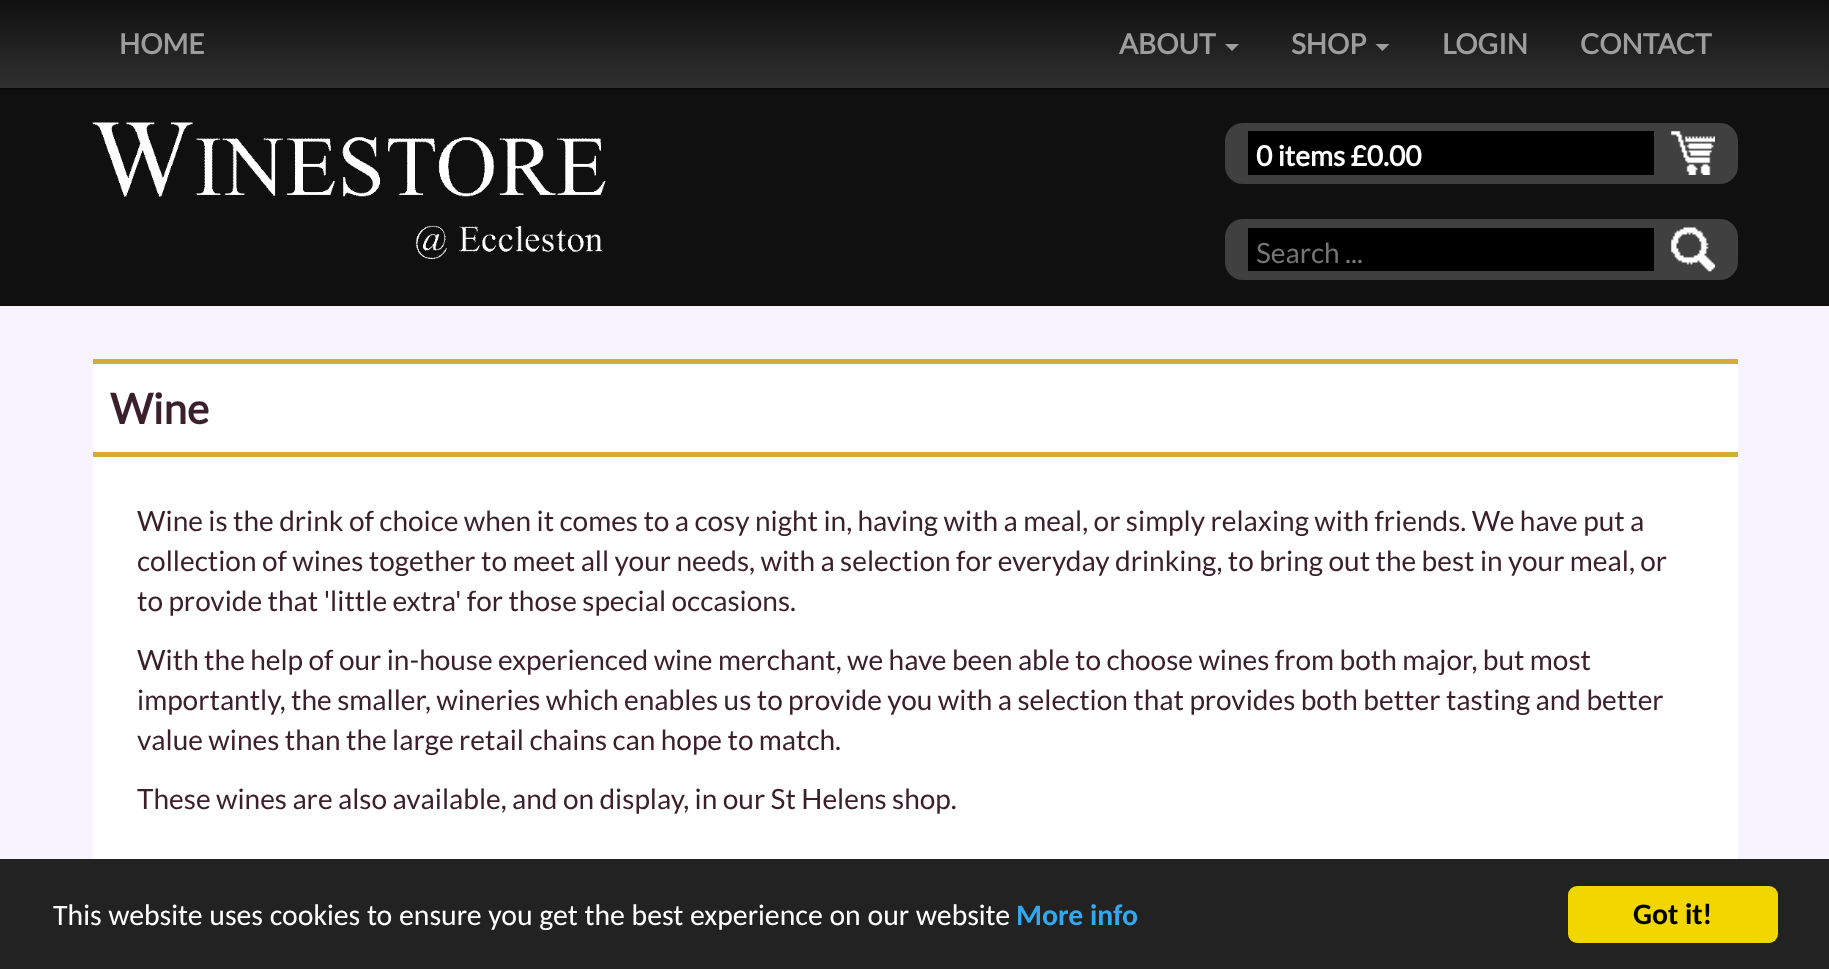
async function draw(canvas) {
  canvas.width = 1829;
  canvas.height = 969;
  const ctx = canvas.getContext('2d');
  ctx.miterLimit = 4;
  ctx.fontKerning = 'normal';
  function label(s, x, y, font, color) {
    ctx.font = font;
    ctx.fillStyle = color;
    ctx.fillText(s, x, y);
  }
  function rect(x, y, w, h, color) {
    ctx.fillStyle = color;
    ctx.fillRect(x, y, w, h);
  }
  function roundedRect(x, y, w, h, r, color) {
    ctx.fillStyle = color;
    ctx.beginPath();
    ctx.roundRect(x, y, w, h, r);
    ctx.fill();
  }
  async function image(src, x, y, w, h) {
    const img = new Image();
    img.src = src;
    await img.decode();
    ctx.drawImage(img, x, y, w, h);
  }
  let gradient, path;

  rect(0, 0, 1829, 969, '#f8f4ff');
  gradient = ctx.createLinearGradient(915, 0, 915, 88);
  gradient.addColorStop(0, '#101010');
  gradient.addColorStop(1, '#303030');
  ctx.fillStyle = gradient;
  ctx.fillRect(0, 0, 1829, 88);
  rect(0, 88, 1829, 2, '#080808');
  label('HOME', 119, 54, 'bold 28px Lato', '#9d9d9d');
  label('ABOUT', 1119, 54, 'bold 28px Lato', '#9d9d9d');
  path = new Path2D('M1225 44H1239L1232 51Z');
  ctx.fill(path);
  label('SHOP', 1291, 54, 'bold 28px Lato', '#9d9d9d');
  path = new Path2D('M1375.5 44H1389.5L1382.5 51Z');
  ctx.fill(path);
  label('LOGIN', 1442, 54, 'bold 28px Lato', '#9d9d9d');
  label('CONTACT', 1580, 54, 'bold 28px Lato', '#9d9d9d');
  rect(0, 90, 1829, 216, '#101010');
  await image('assets/img1.png', 92, 122, 514, 137);
  roundedRect(1225, 123, 513, 61, 18, '#404040');
  rect(1248, 131, 406, 44, '#000');
  label('0 items £0.00', 1256, 166, 'bold 28px Lato', '#fff');
  await image('assets/img2.png', 1671, 131, 44, 44);
  roundedRect(1225, 219, 513, 61, 18, '#404040');
  rect(1248, 228, 406, 43, '#000');
  label('Search ...', 1256, 263, '28px Lato', '#757575');
  await image('assets/img3.png', 1671, 227, 44, 45);
  rect(93, 364, 1645, 88, '#fff');
  rect(93, 359, 1645, 5, '#d4ad38');
  rect(93, 452, 1645, 5, '#d4ad38');
  label('Wine', 110, 424, 'bold 42px Lato', '#3b1f2b');
  rect(93, 457, 1645, 402, '#fff');
  label('Wine is the drink of choice when it comes to a cosy night in, having with a meal, or simply relaxing with friends. We have put a', 137, 531, '28px Lato', '#3b1f2b');
  label('collection of wines together to meet all your needs, with a selection for everyday drinking, to bring out the best in your meal, or', 137, 571, '28px Lato', '#3b1f2b');
  label('to provide that \'little extra\' for those special occasions.', 137, 611, '28px Lato', '#3b1f2b');
  label('With the help of our in-house experienced wine merchant, we have been able to choose wines from both major, but most', 137, 670, '28px Lato', '#3b1f2b');
  label('importantly, the smaller, wineries which enables us to provide you with a selection that provides both better tasting and better', 137, 710, '28px Lato', '#3b1f2b');
  label('value wines than the large retail chains can hope to match.', 137, 750, '28px Lato', '#3b1f2b');
  label('These wines are also available, and on display, in our St Helens shop.', 137, 809, '28px Lato', '#3b1f2b');
  rect(0, 859, 1829, 110, '#222');
  label('This website uses cookies to ensure you get the best experience on our website', 53, 925, '29.75px Carlito', '#fff');
  label('More info', 1016, 925, 'bold 29.75px Carlito', '#31a8f0');
  roundedRect(1568, 886, 210, 57, 9, '#f1d600');
  label('Got it!', 1633, 924, 'bold 29.75px Carlito', '#000');
}

draw(document.querySelector('canvas'));
